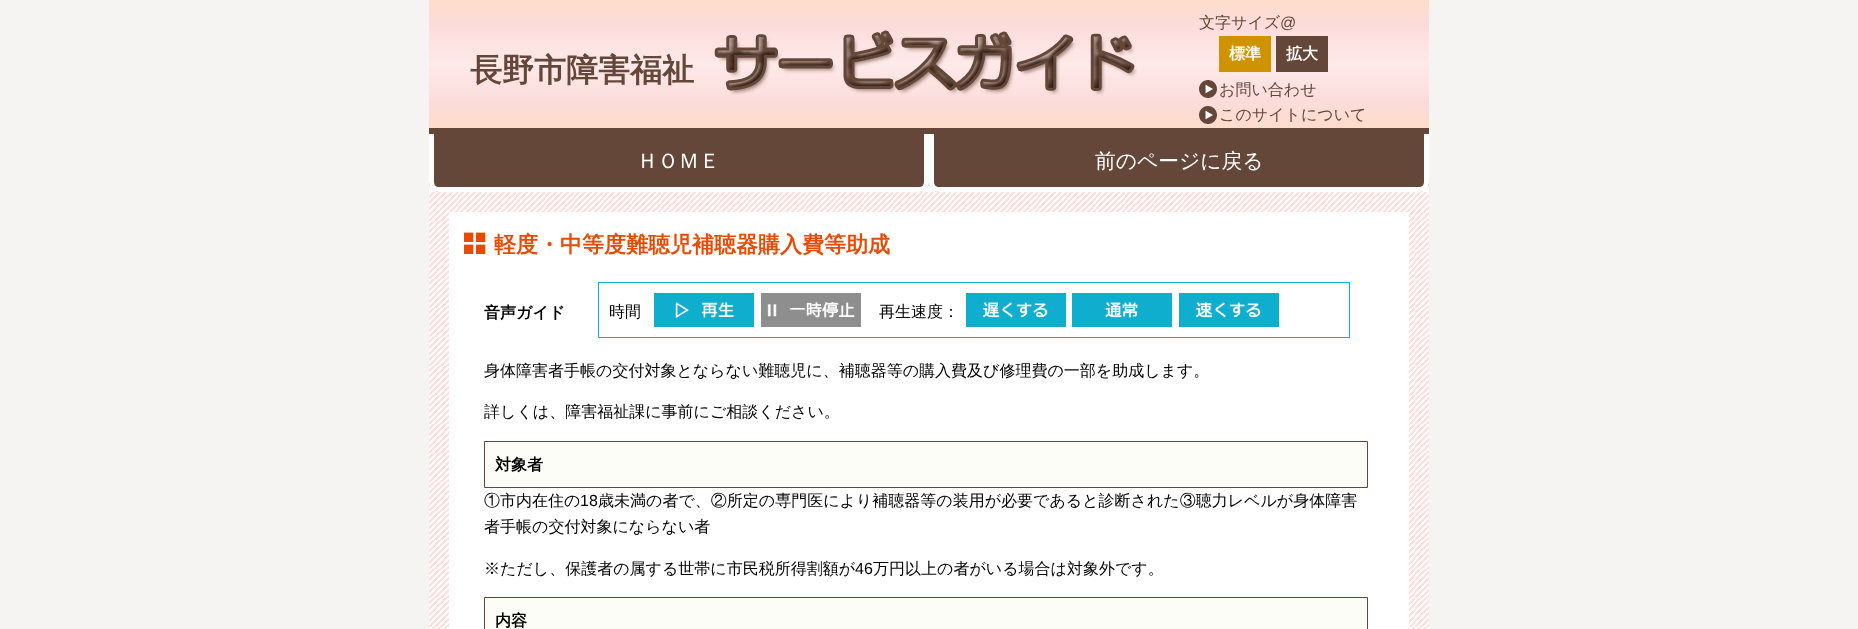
async function draw(canvas) {
  canvas.width = 1858;
  canvas.height = 629;
  const ctx = canvas.getContext('2d');
  ctx.miterLimit = 4;
  ctx.fontKerning = 'normal';
  function label(s, x, y, font, color) {
    ctx.font = font;
    ctx.fillStyle = color;
    ctx.fillText(s, x, y);
  }
  function rect(x, y, w, h, color) {
    ctx.fillStyle = color;
    ctx.fillRect(x, y, w, h);
  }
  async function image(src, x, y, w, h) {
    const img = new Image();
    img.src = src;
    await img.decode();
    ctx.drawImage(img, x, y, w, h);
  }
  let gradient, path;

  rect(0, 0, 1858, 629, '#f5f4f3');
  gradient = ctx.createLinearGradient(929, 0, 929, 128);
  gradient.addColorStop(0, '#fdc');
  gradient.addColorStop(0.2, '#fcdcdb');
  gradient.addColorStop(0.5, '#feeae9');
  gradient.addColorStop(0.8, '#fcdcdb');
  gradient.addColorStop(1, '#fdc');
  ctx.fillStyle = gradient;
  ctx.fillRect(429, 0, 1000, 128);
  rect(429, 128, 1000, 6, '#654739');
  label('長野市障害福祉', 470, 81, 'bold 32px WenQuanYi Zen Hei', '#654739');
  await image('assets/img1.png', 714, 30, 423, 66);
  label('文字サイズ', 1199, 28, '500 16px WenQuanYi Zen Hei', '#654739');
  label('@', 1280, 28, '16px Liberation Sans', '#654739');
  rect(1219, 36, 52, 36, '#d09300');
  label('標準', 1229, 59, 'bold 16px WenQuanYi Zen Hei', '#fff');
  rect(1276, 36, 52, 36, '#654739');
  label('拡大', 1286, 59, 'bold 16px WenQuanYi Zen Hei', '#fff');
  await image('assets/img2.png', 1199, 80, 18, 18);
  label('お問い合わせ', 1219, 95, '500 16px WenQuanYi Zen Hei', '#654739');
  await image('assets/img3.png', 1199, 106, 18, 18);
  label('このサイトについて', 1219, 120, '500 16px WenQuanYi Zen Hei', '#654739');
  rect(429, 182, 1000, 10, '#fff');
  ctx.fillStyle = '#654739';
  ctx.beginPath();
  ctx.roundRect(429, 134, 500, 58, [0, 0, 10, 10]);
  ctx.fill();
  ctx.fillStyle = '#fff';
  path = new Path2D('M429 134H929V182C929 188 925 192 919 192H439C433 192 429 188 429 182ZM434 134H924V182C924 185 922 187 919 187H439C436 187 434 185 434 182Z');
  ctx.fill(path, 'evenodd');
  label('ＨＯＭＥ', 637, 168, '500 20.75px WenQuanYi Zen Hei', '#fff');
  ctx.fillStyle = '#654739';
  ctx.beginPath();
  ctx.roundRect(929, 134, 500, 58, [0, 0, 10, 10]);
  ctx.fill();
  ctx.fillStyle = '#fff';
  path = new Path2D('M929 134H1429V182C1429 188 1425 192 1419 192H939C933 192 929 188 929 182ZM934 134H1424V182C1424 185 1422 187 1419 187H939C936 187 934 185 934 182Z');
  ctx.fill(path, 'evenodd');
  label('前のページに戻る', 1095, 168, '500 20.75px WenQuanYi Zen Hei', '#fff');
  await image('assets/img4.png', 429, 192, 1000, 437);
  rect(449, 212, 960, 417, '#fff');
  await image('assets/img5.png', 464, 232, 22, 22);
  label('軽度・中等度難聴児補聴器購入費等助成', 494, 252, 'bold 22px WenQuanYi Zen Hei', '#e84a01');
  label('音声ガイド', 484, 318, 'bold 16px WenQuanYi Zen Hei', '#000');
  ctx.strokeStyle = '#0fadce';
  ctx.strokeRect(598.5, 282.5, 751, 55);
  label('時間', 609, 317, '500 16px WenQuanYi Zen Hei', '#000');
  await image('assets/img6.png', 654, 293, 100, 34);
  await image('assets/img7.png', 761, 293, 100, 34);
  label('再生速度：', 879, 317, '500 16px WenQuanYi Zen Hei', '#000');
  await image('assets/img8.png', 966, 293, 100, 34);
  await image('assets/img9.png', 1072, 293, 100, 34);
  await image('assets/img10.png', 1179, 293, 100, 34);
  label('身体障害者手帳の交付対象とならない難聴児に、補聴器等の購入費及び修理費の一部を助成します。', 484, 376, '500 16px WenQuanYi Zen Hei', '#000');
  label('詳しくは、障害福祉課に事前にご相談ください。', 484, 417, '500 16px WenQuanYi Zen Hei', '#000');
  ctx.fillStyle = '#fdfdf7';
  ctx.beginPath();
  ctx.rect(484.5, 441.5, 883, 46);
  ctx.fill();
  ctx.strokeStyle = '#654739';
  ctx.stroke();
  label('対象者', 495, 470, 'bold 16px WenQuanYi Zen Hei', '#000');
  label('①市内在住の', 484, 506, '500 16px WenQuanYi Zen Hei', '#000');
  label('18', 580, 506, '16px Liberation Sans', '#000');
  label('歳未満の者で、②所定の専門医により補聴器等の装用が必要であると診断された③聴力レベルが身体障害', 598, 506, '500 16px WenQuanYi Zen Hei', '#000');
  label('者手帳の交付対象にならない者', 484, 532, '500 16px WenQuanYi Zen Hei', '#000');
  label('※ただし、保護者の属する世帯に市民税所得割額が', 484, 574, '500 16px WenQuanYi Zen Hei', '#000');
  label('46', 855, 574, '16px Liberation Sans', '#000');
  label('万円以上の者がいる場合は対象外です。', 873, 574, '500 16px WenQuanYi Zen Hei', '#000');
  ctx.fillStyle = '#fdfdf7';
  ctx.beginPath();
  ctx.rect(484.5, 597.5, 883, 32);
  ctx.fill();
  ctx.stroke();
  label('内容', 495, 626, 'bold 16px WenQuanYi Zen Hei', '#000');
}

draw(document.querySelector('canvas'));
